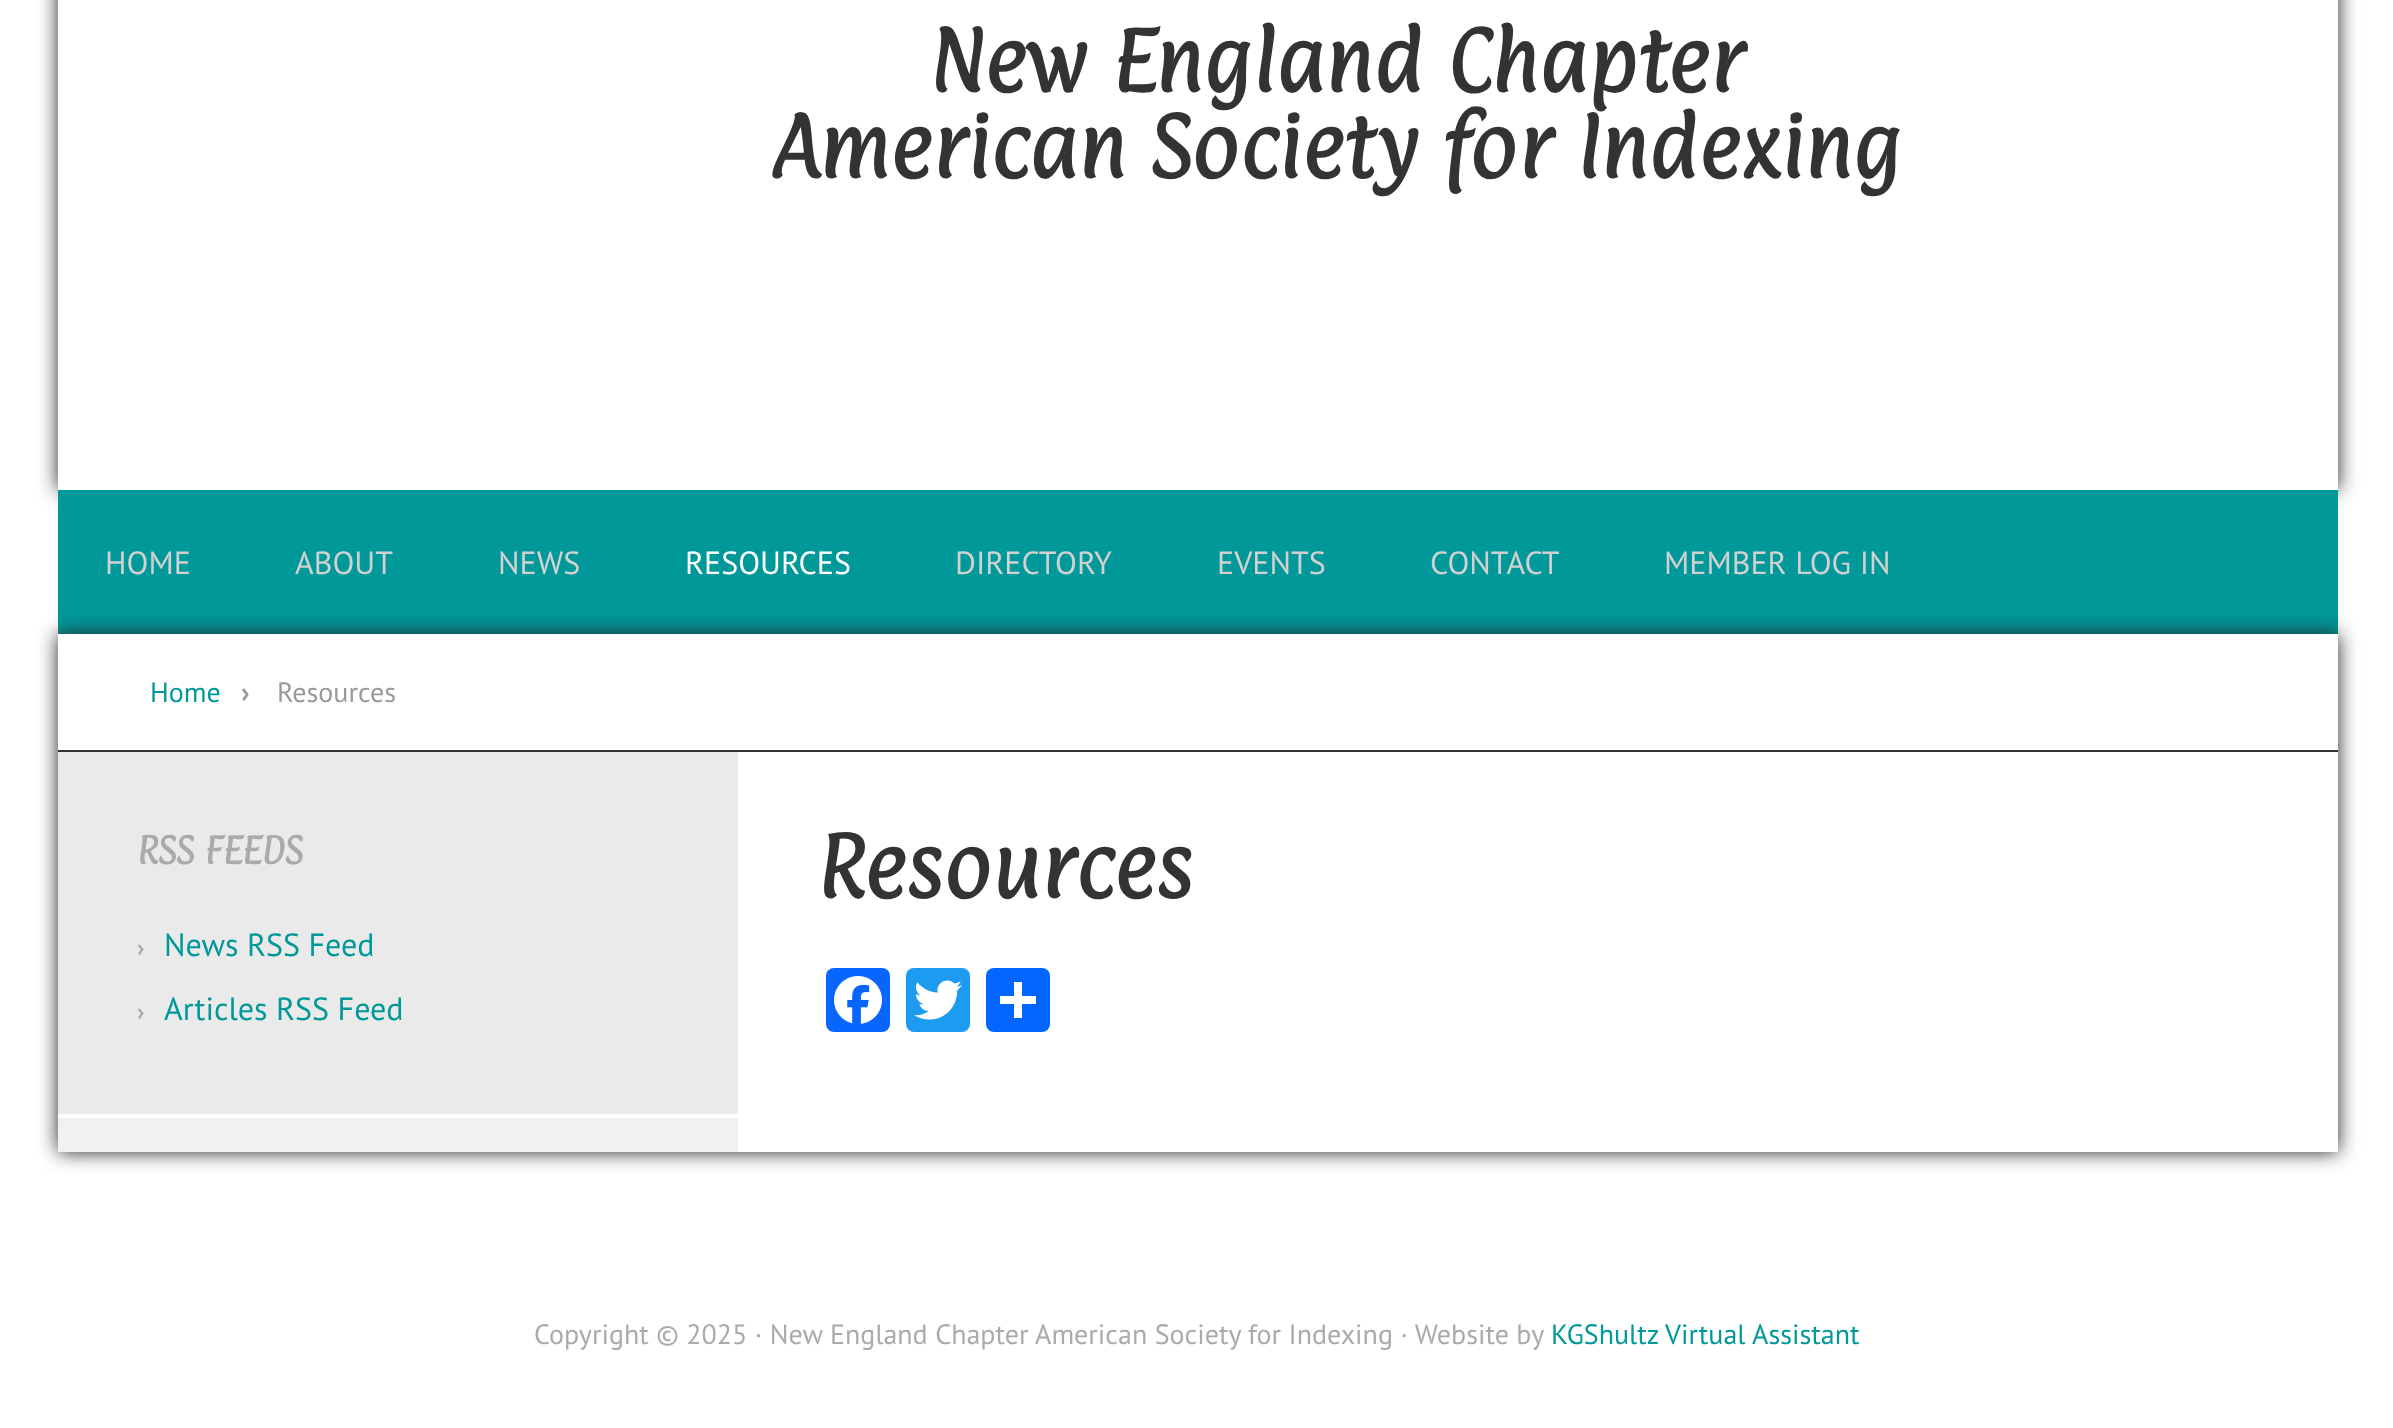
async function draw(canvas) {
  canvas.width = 2393;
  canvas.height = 1428;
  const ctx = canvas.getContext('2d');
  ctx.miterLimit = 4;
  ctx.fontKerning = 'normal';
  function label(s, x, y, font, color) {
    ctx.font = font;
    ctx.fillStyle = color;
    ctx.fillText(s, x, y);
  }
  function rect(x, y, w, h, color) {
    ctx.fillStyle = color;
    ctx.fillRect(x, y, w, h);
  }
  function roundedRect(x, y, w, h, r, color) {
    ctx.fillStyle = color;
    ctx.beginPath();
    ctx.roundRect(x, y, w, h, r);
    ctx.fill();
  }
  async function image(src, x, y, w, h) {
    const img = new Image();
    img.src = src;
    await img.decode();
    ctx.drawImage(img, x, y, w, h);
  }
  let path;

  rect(0, 0, 2393, 1428, '#fff');
  ctx.save();
  path = new Path2D('M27 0H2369V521H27ZM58-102H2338V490H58Z');
  ctx.clip(path, 'evenodd');
  ctx.fillStyle = '#222';
  ctx.filter = 'blur(10px)';
  ctx.beginPath();
  ctx.rect(58, -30, 2280, 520);
  ctx.fill();
  ctx.filter = 'none';
  ctx.restore();
  label('New England Chapter', 929, 92, 'bold 72px Paprika', '#333');
  label('American Society for Indexing', 772, 178, 'bold 72px Paprika', '#333');
  rect(58, 490, 2280, 144, '#009899');
  label('HOME', 105, 574, '32px PT Sans', '#d1d1d1');
  label('ABOUT', 295, 574, '32px PT Sans', '#d1d1d1');
  label('NEWS', 498, 574, '32px PT Sans', '#d1d1d1');
  label('RESOURCES', 685, 574, '32px PT Sans', '#fff');
  label('DIRECTORY', 955, 574, '32px PT Sans', '#d1d1d1');
  label('EVENTS', 1217, 574, '32px PT Sans', '#d1d1d1');
  label('CONTACT', 1430, 574, '32px PT Sans', '#d1d1d1');
  label('MEMBER LOG IN', 1664, 574, '32px PT Sans', '#d1d1d1');
  ctx.fillStyle = '#222';
  ctx.filter = 'blur(10px)';
  ctx.beginPath();
  ctx.rect(58, 634, 2280, 518);
  ctx.fill();
  ctx.filter = 'none';
  rect(58, 1118, 680, 34, '#f1f1f1');
  rect(58, 634, 2280, 116, '#fff');
  rect(58, 750, 2280, 2, '#333');
  label('Home', 150, 702, '28px PT Sans', '#009899');
  label('›', 241, 702, 'bold 28px PT Sans', '#999');
  label('Resources', 277, 702, '28px PT Sans', '#999');
  rect(58, 752, 680, 362, '#eaeaea');
  rect(58, 1114, 680, 4, '#fff');
  label('RSS FEEDS', 137, 864, 'bold 32px Paprika', '#aaa');
  label('›', 137, 956, 'bold 24px PT Sans', '#aaa');
  label('News RSS Feed', 164, 956, '32px PT Sans', '#009899');
  label('›', 137, 1020, 'bold 24px PT Sans', '#aaa');
  label('Articles RSS Feed', 164, 1020, '32px PT Sans', '#009899');
  rect(738, 752, 1600, 400, '#fff');
  label('Resources', 817, 898, 'bold 72px Paprika', '#333');
  roundedRect(826, 968, 64, 64, 8, '#0866ff');
  await image('assets/img1.png', 834, 976, 48, 48);
  roundedRect(906, 968, 64, 64, 8, '#1d9bf0');
  await image('assets/img2.png', 914, 980, 48, 40);
  roundedRect(986, 968, 64, 64, 8, '#0166ff');
  rect(1014, 982, 8, 36, '#fff');
  rect(1000, 996, 36, 8, '#fff');
  label('Copyright © 2025 · New England Chapter American Society for Indexing · Website by', 534, 1344, '28px PT Sans', '#aaa');
  label('KGShultz Virtual Assistant', 1551, 1344, '28px PT Sans', '#009899');
}

draw(document.querySelector('canvas'));
